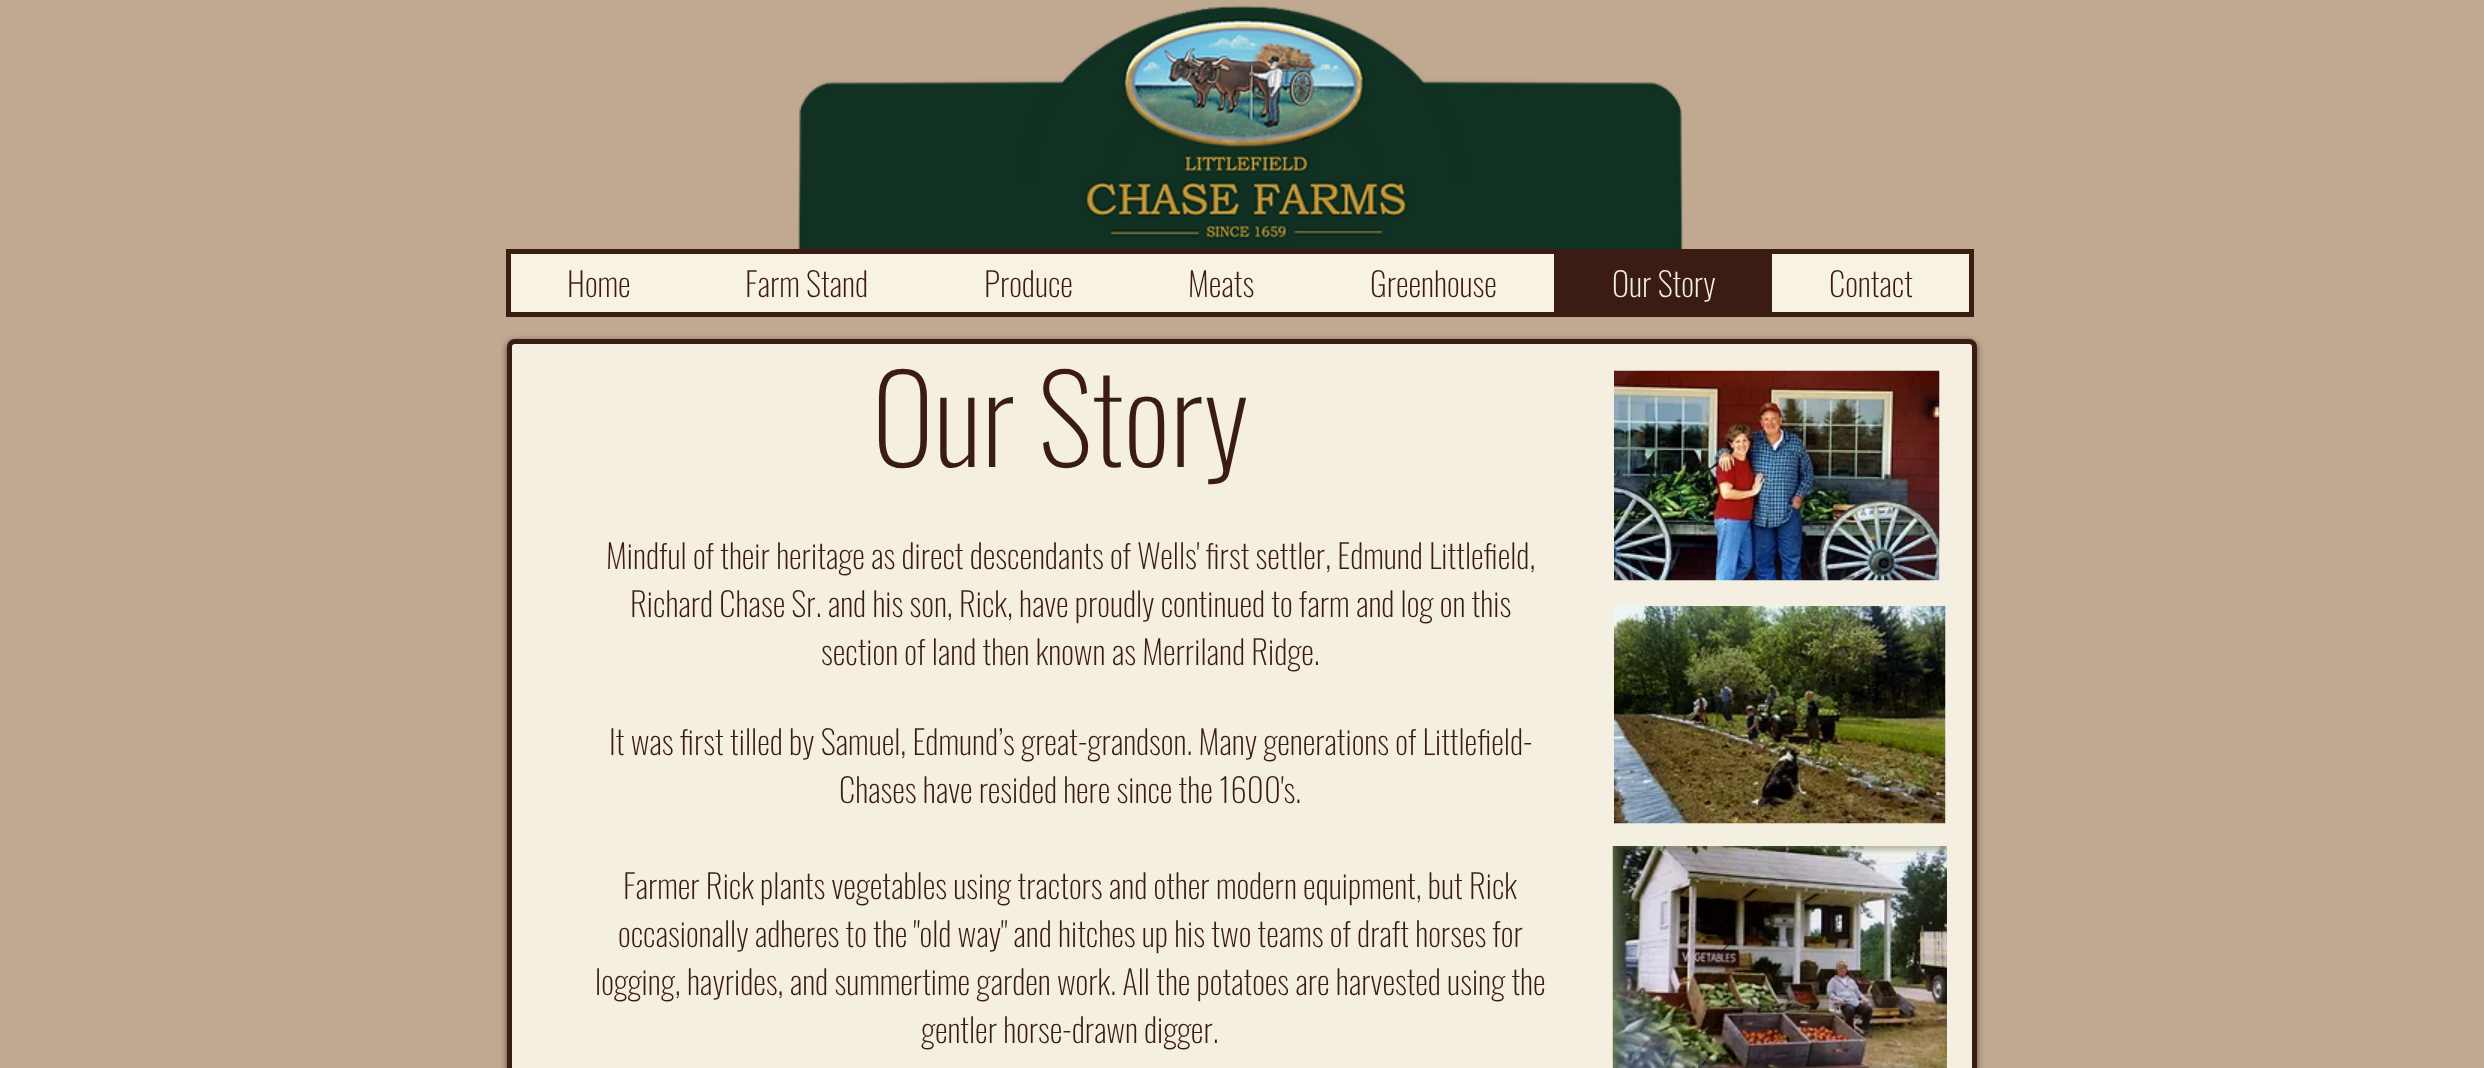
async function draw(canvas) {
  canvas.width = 2484;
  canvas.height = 1068;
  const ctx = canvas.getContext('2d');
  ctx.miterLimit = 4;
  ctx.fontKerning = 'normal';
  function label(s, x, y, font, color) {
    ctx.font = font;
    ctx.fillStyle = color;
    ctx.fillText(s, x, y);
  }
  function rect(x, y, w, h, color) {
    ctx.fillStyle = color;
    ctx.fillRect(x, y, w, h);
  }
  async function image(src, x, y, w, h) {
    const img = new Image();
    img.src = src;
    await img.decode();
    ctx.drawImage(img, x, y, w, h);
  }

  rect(0, 0, 2484, 1068, '#c0a891');
  await image('assets/img1.png', 798, 5, 886, 244);
  ctx.fillStyle = '#f7f2e2';
  ctx.beginPath();
  ctx.rect(508.5, 251.5, 1463, 63);
  ctx.fill();
  ctx.strokeStyle = '#3a1c13';
  ctx.lineWidth = 5;
  ctx.stroke();
  label('Home', 567, 297, '200 33px Oswald', '#3a1c13');
  label('Farm Stand', 745, 297, '200 33px Oswald', '#3a1c13');
  label('Produce', 984, 297, '200 33px Oswald', '#3a1c13');
  label('Meats', 1188, 297, '200 33px Oswald', '#3a1c13');
  label('Greenhouse', 1370, 297, '200 33px Oswald', '#3a1c13');
  rect(1554, 254, 218, 58, '#3a1c13');
  label('Our Story', 1612, 297, '200 33px Oswald', '#f4efe1');
  label('Contact', 1829, 297, '200 33px Oswald', '#3a1c13');
  ctx.fillStyle = '#00000099';
  ctx.filter = 'blur(3px)';
  ctx.beginPath();
  ctx.roundRect(507, 341, 1470, 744, 8);
  ctx.fill();
  ctx.filter = 'none';
  ctx.fillStyle = '#f4efe1';
  ctx.beginPath();
  ctx.roundRect(509.5, 341.5, 1465, 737, 5.5);
  ctx.fill();
  ctx.stroke();
  label('Our Story', 872, 467, '200 120px Oswald', '#3a1c13');
  await image('assets/img2.png', 1614, 370, 326, 211);
  label('Mindful of their heritage as direct descendants of Wells\' first settler, Edmund Littlefield,', 606, 569, '200 33px Oswald', '#3a1c13');
  label('Richard Chase Sr. and his son, Rick, have proudly continued to farm and log on this', 630, 617, '200 33px Oswald', '#3a1c13');
  label('section of land then known as Merriland Ridge.', 821, 665, '200 33px Oswald', '#3a1c13');
  label('It was first tilled by Samuel, Edmund’s great-grandson. Many generations of Littlefield-', 609, 755, '200 33px Oswald', '#3a1c13');
  label('Chases have resided here since the 1600\'s.', 839, 803, '200 33px Oswald', '#3a1c13');
  label('Farmer Rick plants vegetables using tractors and other modern equipment, but Rick', 623, 899, '200 33px Oswald', '#3a1c13');
  label('occasionally adheres to the "old way" and hitches up his two teams of draft horses for', 618, 947, '200 33px Oswald', '#3a1c13');
  label('logging, hayrides, and summertime garden work. All the potatoes are harvested using the', 595, 995, '200 33px Oswald', '#3a1c13');
  label('gentler horse-drawn digger.', 921, 1043, '200 33px Oswald', '#3a1c13');
  await image('assets/img3.png', 1614, 606, 332, 218);
  await image('assets/img4.png', 1612, 846, 335, 222);
}

draw(document.querySelector('canvas'));
